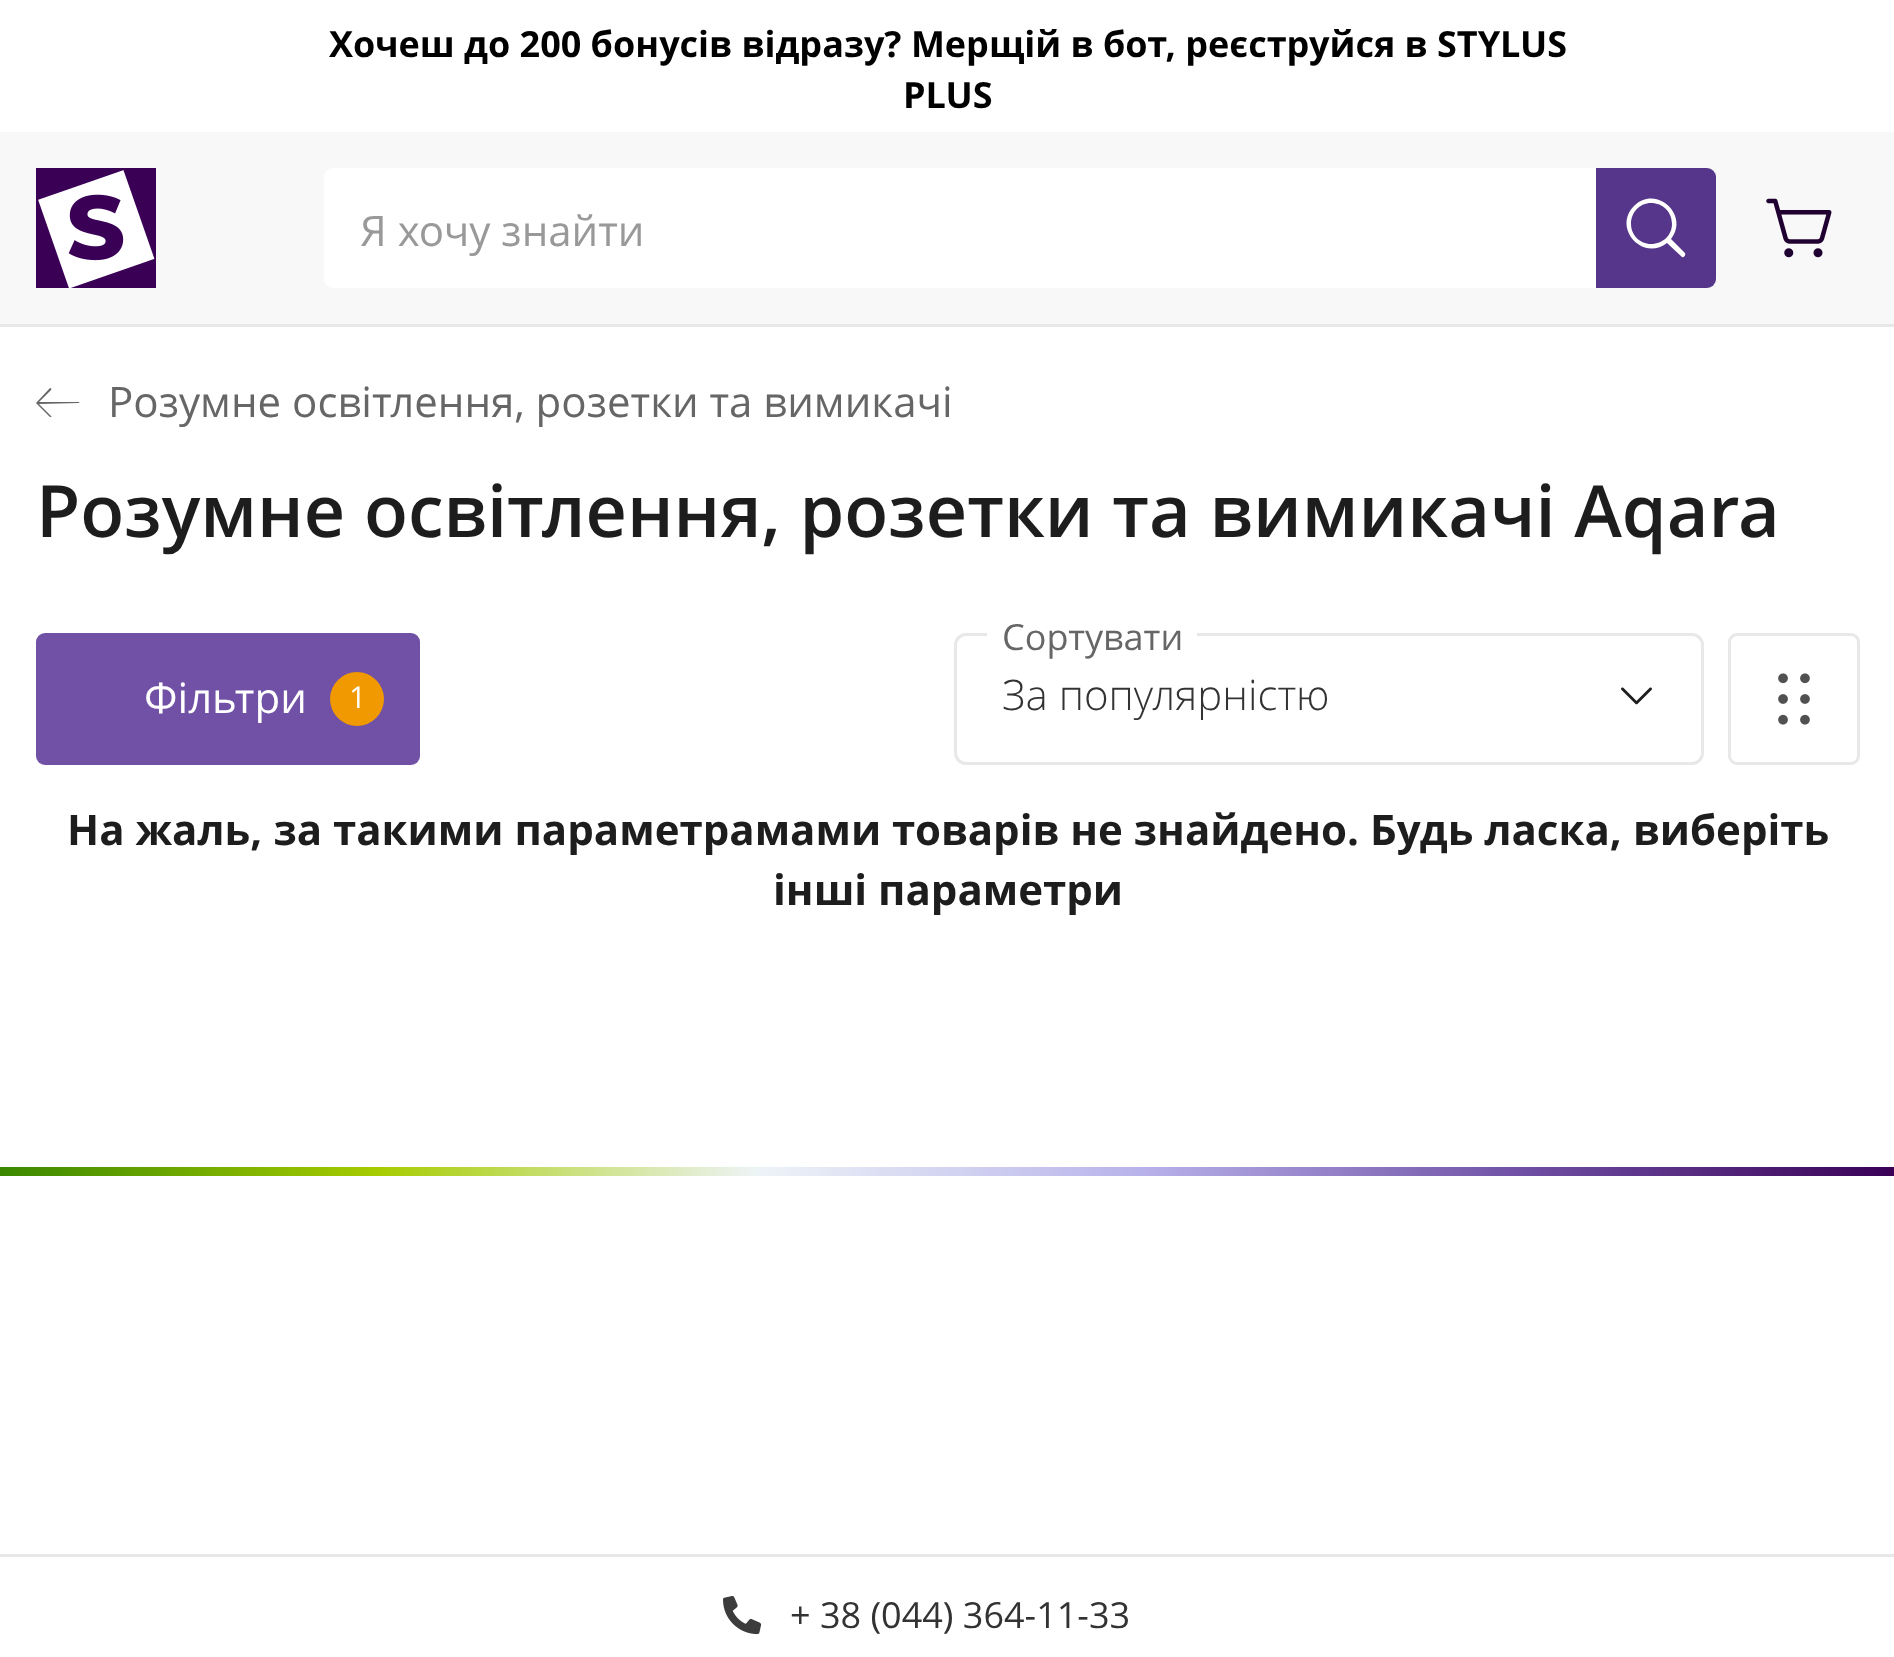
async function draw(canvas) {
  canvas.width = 1894;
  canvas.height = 1657;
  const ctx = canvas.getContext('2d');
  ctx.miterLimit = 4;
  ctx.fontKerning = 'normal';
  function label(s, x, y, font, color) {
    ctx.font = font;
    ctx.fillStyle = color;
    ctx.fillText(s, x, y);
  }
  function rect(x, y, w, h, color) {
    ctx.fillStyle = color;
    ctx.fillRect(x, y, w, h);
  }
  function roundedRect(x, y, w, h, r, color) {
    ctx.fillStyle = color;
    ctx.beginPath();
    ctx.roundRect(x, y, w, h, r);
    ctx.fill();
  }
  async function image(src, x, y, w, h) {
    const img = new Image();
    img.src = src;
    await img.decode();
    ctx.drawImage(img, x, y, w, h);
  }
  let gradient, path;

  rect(0, 0, 1894, 1657, '#fff');
  label('Хочеш до 200 бонусів відразу? Мерщій в бот, реєструйся в STYLUS', 329, 57, 'bold 36px Open Sans', '#000');
  label('PLUS', 903, 108, 'bold 36px Open Sans', '#000');
  rect(0, 132, 1894, 192, '#f8f8f8');
  rect(0, 324, 1894, 3, '#e8e8e8');
  await image('assets/img1.png', 36, 168, 120, 120);
  ctx.fillStyle = '#fff';
  ctx.beginPath();
  ctx.roundRect(324, 168, 1272, 120, [9, 0, 0, 9]);
  ctx.fill();
  label('Я хочу знайти', 360, 246, '42px Open Sans', '#999');
  ctx.fillStyle = '#55368a';
  ctx.beginPath();
  ctx.roundRect(1596, 168, 120, 120, [0, 9, 9, 0]);
  ctx.fill();
  ctx.fillStyle = '#fff';
  path = new Path2D('M1685 253L1671 239C1690 215 1656 184 1634 206C1612 228 1643 262 1667 243L1682 257C1684 258 1686 255 1685 253ZM1631 224C1631 212 1640 203 1651 203C1663 203 1672 212 1672 224C1672 235 1663 244 1651 244C1640 244 1631 235 1631 224Z');
  ctx.fill(path);
  await image('assets/img2.png', 1766, 198, 66, 60);
  ctx.fillStyle = '#666';
  path = new Path2D('M79 402H39L51 390C52 389 51 388 50 388L36 403L50 417C51 417 52 417 51 416L39 404L79 403C80 403 79 402 79 402Z');
  ctx.fill(path);
  label('Розумне освітлення, розетки та вимикачі', 108, 417, '42px Open Sans', '#666');
  label('Розумне освітлення, розетки та вимикачі Aqara', 36, 537, '600 72px Open Sans', '#1d1d1d');
  roundedRect(36, 633, 384, 132, 9, '#7051a5');
  label('Фільтри', 144, 713, '42px Open Sans', '#fff');
  ctx.fillStyle = '#f19900';
  ctx.beginPath();
  ctx.arc(357, 699, 27, 0, 2 * Math.PI);
  ctx.fill();
  label('1', 349, 708, '30px Open Sans', '#fff');
  ctx.beginPath();
  ctx.roundRect(955.5, 634.5, 747, 129, 10.5);
  ctx.strokeStyle = '#e8e8e8';
  ctx.lineWidth = 3;
  ctx.stroke();
  rect(987, 633, 210, 3, '#fff');
  label('Сортувати', 1002, 650, '36px Open Sans', '#666');
  label('За популярністю', 1002, 710, '300 42px Open Sans', '#333');
  await image('assets/img3.png', 1621, 687, 31, 18);
  ctx.beginPath();
  ctx.roundRect(1729.5, 634.5, 129, 129, 7.5);
  ctx.stroke();
  await image('assets/img4.png', 1778, 673, 32, 52);
  label('На жаль, за такими параметрамами товарів не знайдено. Будь ласка, виберіть', 67, 845, 'bold 42px Open Sans', '#1d1d1d');
  label('інші параметри', 773, 905, 'bold 42px Open Sans', '#1d1d1d');
  gradient = ctx.createLinearGradient(0, 1172, 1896, 1172);
  gradient.addColorStop(0, '#3a8700');
  gradient.addColorStop(0.2, '#a7cc00');
  gradient.addColorStop(0.4, '#edf4f7');
  gradient.addColorStop(0.6, '#b9b3eb');
  gradient.addColorStop(0.8, '#7051a5');
  gradient.addColorStop(1, '#390056');
  ctx.fillStyle = gradient;
  ctx.fillRect(0, 1167, 1894, 9);
  rect(0, 1554, 1894, 3, '#e8e8e8');
  await image('assets/img5.png', 723, 1596, 39, 39);
  label('+ 38 (044) 364-11-33', 790, 1628, '36px Open Sans', '#333');
}

draw(document.querySelector('canvas'));
